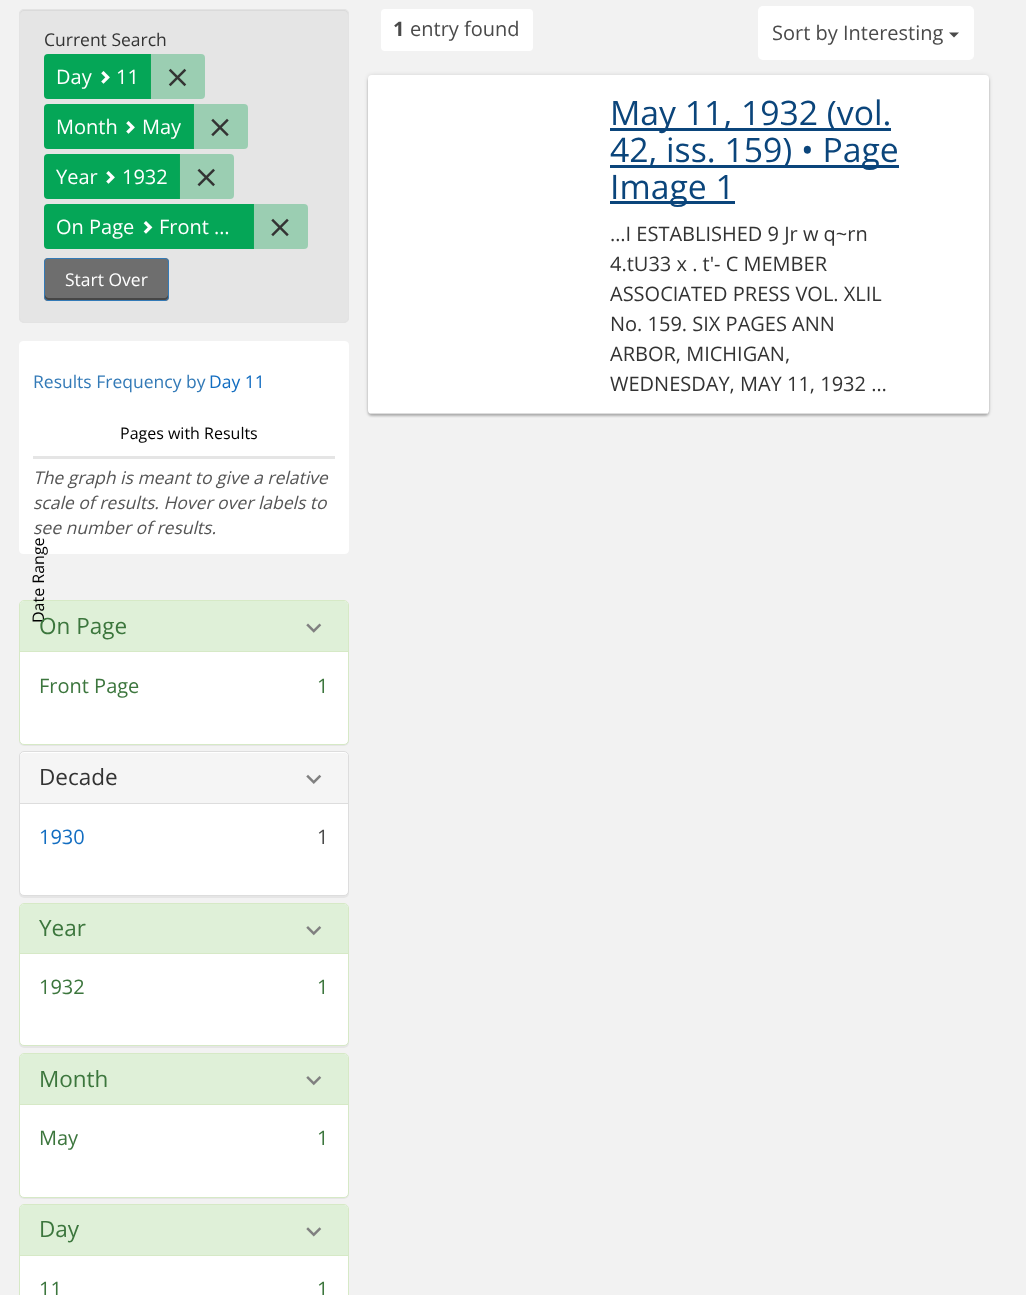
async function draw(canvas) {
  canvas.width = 1026;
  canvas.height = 1295;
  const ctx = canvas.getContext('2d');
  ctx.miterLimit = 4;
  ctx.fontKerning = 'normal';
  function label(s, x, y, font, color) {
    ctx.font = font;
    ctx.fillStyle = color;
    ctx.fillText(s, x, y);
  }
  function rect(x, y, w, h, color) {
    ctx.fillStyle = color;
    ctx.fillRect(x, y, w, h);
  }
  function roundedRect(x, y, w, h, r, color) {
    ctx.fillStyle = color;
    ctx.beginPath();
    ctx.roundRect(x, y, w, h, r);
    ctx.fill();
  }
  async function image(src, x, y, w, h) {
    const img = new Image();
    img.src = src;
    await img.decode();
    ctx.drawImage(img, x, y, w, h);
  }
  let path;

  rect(0, 0, 1026, 1295, '#f2f2f2');
  roundedRect(19, 9, 330, 314, 5, '#e5e5e5');
  ctx.fillStyle = '#dadada';
  path = new Path2D('M24 11H344C346 11 348 13 348 15V14C348 12 346 10 344 10H24C22 10 20 12 20 14V15C20 13 22 11 24 11Z');
  ctx.fill(path);
  ctx.beginPath();
  ctx.roundRect(19.5, 9.5, 329, 313, 4.5);
  ctx.strokeStyle = '#e3e3e3';
  ctx.stroke();
  label('Current Search', 44, 46, '17.5px Open Sans', '#333');
  ctx.fillStyle = '#05a657';
  ctx.beginPath();
  ctx.roundRect(44, 54, 107, 45, [4, 0, 0, 4]);
  ctx.fill();
  label('Day', 56, 84, '20px Open Sans', '#fff');
  await image('assets/img1.png', 101, 71, 9, 13);
  label('11', 116, 84, '20px Open Sans', '#fff');
  ctx.fillStyle = '#1aa55a5c';
  ctx.beginPath();
  ctx.roundRect(150, 54, 55, 45, [0, 4, 4, 0]);
  ctx.fill();
  await image('assets/img2.png', 168, 68, 19, 19);
  ctx.fillStyle = '#05a657';
  ctx.beginPath();
  ctx.roundRect(44, 104, 150, 45, [4, 0, 0, 4]);
  ctx.fill();
  label('Month', 56, 134, '20px Open Sans', '#fff');
  await image('assets/img1.png', 126, 121, 9, 13);
  label('May', 142, 134, '20px Open Sans', '#fff');
  ctx.fillStyle = '#1aa55a5c';
  ctx.beginPath();
  ctx.roundRect(193, 104, 55, 45, [0, 4, 4, 0]);
  ctx.fill();
  await image('assets/img3.png', 211, 118, 18, 19);
  ctx.fillStyle = '#05a657';
  ctx.beginPath();
  ctx.roundRect(44, 154, 136, 45, [4, 0, 0, 4]);
  ctx.fill();
  label('Year', 56, 184, '20px Open Sans', '#fff');
  await image('assets/img1.png', 106, 171, 9, 13);
  label('1932', 122, 184, '20px Open Sans', '#fff');
  ctx.fillStyle = '#1aa55a5c';
  ctx.beginPath();
  ctx.roundRect(179, 154, 55, 45, [0, 4, 4, 0]);
  ctx.fill();
  await image('assets/img4.png', 197, 168, 18, 19);
  ctx.fillStyle = '#05a657';
  ctx.beginPath();
  ctx.roundRect(44, 204, 210, 45, [4, 0, 0, 4]);
  ctx.fill();
  label('On Page', 56, 234, '20px Open Sans', '#fff');
  await image('assets/img5.png', 143, 221, 10, 13);
  label('Front …', 159, 234, '20px Open Sans', '#fff');
  ctx.fillStyle = '#1aa55a5c';
  ctx.beginPath();
  ctx.roundRect(253, 204, 55, 45, [0, 4, 4, 0]);
  ctx.fill();
  await image('assets/img3.png', 271, 218, 18, 19);
  roundedRect(44, 258, 125, 43, 4, '#6e6e6e');
  ctx.fillStyle = '#464646';
  path = new Path2D('M45 295V298C45 299 46 300 48 300H166C167 300 168 299 168 298V295C168 296 166 298 165 298H48L46 297Z');
  ctx.fill(path);
  ctx.beginPath();
  ctx.roundRect(44.5, 258.5, 124, 42, 3.5);
  ctx.strokeStyle = '#337ab7';
  ctx.stroke();
  label('Start Over', 65, 286, '17.5px Open Sans', '#fff');
  ctx.beginPath();
  ctx.roundRect(19.5, 341.5, 329, 212, 3.5);
  ctx.fill();
  ctx.strokeStyle = '#fff';
  ctx.stroke();
  label('Results Frequency by', 33, 388, '17.5px Open Sans', '#337ab7');
  label('Day 11', 209, 388, '17.5px Open Sans', '#126dc1');
  label('Pages with Results', 120, 439, '16px Open Sans', '#000');
  ctx.fillStyle = '#0000000d';
  ctx.filter = 'blur(0.5px)';
  ctx.beginPath();
  ctx.roundRect(19, 601, 330, 145, 5);
  ctx.fill();
  ctx.filter = 'none';
  ctx.fillStyle = '#fff';
  ctx.beginPath();
  ctx.roundRect(19.5, 600.5, 329, 144, 4.5);
  ctx.fill();
  ctx.strokeStyle = '#d6e9c6';
  ctx.stroke();
  ctx.fillStyle = '#dff0d8';
  ctx.beginPath();
  ctx.roundRect(20, 601, 328, 50, [4, 4, 0, 0]);
  ctx.fill();
  ctx.fillStyle = '#000';
  ctx.save();
  ctx.translate(44, 623);
  ctx.rotate(-90 * Math.PI / 180);
  ctx.fillText('Date Range', 0, 0);
  ctx.restore();
  rect(33, 456, 302, 3, '#e5e5e5');
  label('The graph is meant to give a relative', 33, 484, 'italic 17.5px Open Sans', '#555');
  label('scale of results. Hover over labels to', 33, 509, 'italic 17.5px Open Sans', '#555');
  label('see number of results.', 33, 534, 'italic 17.5px Open Sans', '#555');
  label('On Page', 39, 634, '22.5px Open Sans', '#3c763d');
  await image('assets/img6.png', 306, 623, 16, 10);
  rect(20, 651, 328, 1, '#d6e9c6');
  label('Front Page', 39, 693, '20px Open Sans', '#3c763d');
  label('1', 317, 693, '20px Open Sans', '#3c763d');
  ctx.fillStyle = '#0000000d';
  ctx.filter = 'blur(0.5px)';
  ctx.beginPath();
  ctx.roundRect(19, 753, 330, 145, 5);
  ctx.fill();
  ctx.filter = 'none';
  ctx.fillStyle = '#fff';
  ctx.beginPath();
  ctx.roundRect(19.5, 751.5, 329, 144, 4.5);
  ctx.fill();
  ctx.strokeStyle = '#ddd';
  ctx.stroke();
  ctx.fillStyle = '#f5f5f5';
  ctx.beginPath();
  ctx.roundRect(20, 753, 328, 50, [4, 4, 0, 0]);
  ctx.fill();
  label('Decade', 39, 785, '22.5px Open Sans', '#333');
  await image('assets/img7.png', 306, 774, 16, 10);
  rect(20, 803, 328, 1, '#ddd');
  label('1930', 39, 844, '20px Open Sans', '#126dc1');
  label('1', 317, 844, '20px Open Sans', '#4a4a4a');
  ctx.fillStyle = '#0000000d';
  ctx.filter = 'blur(0.5px)';
  ctx.beginPath();
  ctx.roundRect(19, 904, 330, 144, 5);
  ctx.fill();
  ctx.filter = 'none';
  ctx.fillStyle = '#fff';
  ctx.beginPath();
  ctx.roundRect(19.5, 903.5, 329, 142, 4.5);
  ctx.fill();
  ctx.strokeStyle = '#d6e9c6';
  ctx.stroke();
  ctx.fillStyle = '#dff0d8';
  ctx.beginPath();
  ctx.roundRect(20, 904, 328, 49, [4, 4, 0, 0]);
  ctx.fill();
  label('Year', 39, 936, '22.5px Open Sans', '#3c763d');
  await image('assets/img8.png', 306, 926, 16, 10);
  rect(20, 953, 328, 1, '#d6e9c6');
  label('1932', 39, 994, '20px Open Sans', '#3c763d');
  label('1', 317, 994, '20px Open Sans', '#3c763d');
  ctx.fillStyle = '#0000000d';
  ctx.filter = 'blur(0.5px)';
  ctx.beginPath();
  ctx.roundRect(19, 1054, 330, 145, 5);
  ctx.fill();
  ctx.filter = 'none';
  ctx.fillStyle = '#fff';
  ctx.beginPath();
  ctx.roundRect(19.5, 1053.5, 329, 144, 4.5);
  ctx.fill();
  ctx.stroke();
  ctx.fillStyle = '#dff0d8';
  ctx.beginPath();
  ctx.roundRect(20, 1054, 328, 50, [4, 4, 0, 0]);
  ctx.fill();
  label('Month', 39, 1087, '22.5px Open Sans', '#3c763d');
  await image('assets/img8.png', 306, 1076, 16, 10);
  rect(20, 1104, 328, 1, '#d6e9c6');
  label('May', 39, 1145, '20px Open Sans', '#3c763d');
  label('1', 317, 1145, '20px Open Sans', '#3c763d');
  ctx.fillStyle = '#fff';
  ctx.beginPath();
  ctx.roundRect(19.5, 1204.5, 329, 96, 4.5);
  ctx.fill();
  ctx.stroke();
  ctx.fillStyle = '#dff0d8';
  ctx.beginPath();
  ctx.roundRect(20, 1205, 328, 50, [4, 4, 0, 0]);
  ctx.fill();
  label('Day', 39, 1237, '22.5px Open Sans', '#3c763d');
  await image('assets/img9.png', 306, 1227, 16, 10);
  rect(20, 1255, 328, 1, '#d6e9c6');
  label('11', 39, 1296, '20px Open Sans', '#3c763d');
  label('1', 317, 1296, '20px Open Sans', '#3c763d');
  roundedRect(381, 9, 152, 42, 4, '#fff');
  label('1', 393, 36, 'bold 20px Open Sans', '#4a4a4a');
  label('entry found', 410, 36, '20px Open Sans', '#4a4a4a');
  roundedRect(758, 6, 216, 54, 5, '#fff');
  label('Sort by Interesting', 772, 40, '20px Open Sans', '#4a4a4a');
  path = new Path2D('M949 32.5H959L954 37.5Z');
  ctx.fill(path);
  ctx.fillStyle = '#0000001f';
  ctx.filter = 'blur(2px)';
  ctx.beginPath();
  ctx.roundRect(368, 75, 621, 339, 4);
  ctx.fill();
  ctx.filter = 'none';
  ctx.fillStyle = '#0000003d';
  ctx.filter = 'blur(1px)';
  ctx.beginPath();
  ctx.roundRect(368, 78, 621, 338, 4);
  ctx.fill();
  ctx.filter = 'none';
  roundedRect(368, 75, 621, 339, 4, '#fff');
  rect(370, 413, 618, 1, '#ddd');
  rect(610, 128, 281, 3, '#0b457b');
  label('May 11, 1932 (vol.', 610, 125, '33.75px Open Sans', '#0b457b');
  rect(610, 165, 289, 3, '#0b457b');
  label('42, iss. 159) • Page', 610, 162, '33.75px Open Sans', '#0b457b');
  rect(610, 201, 125, 3, '#0b457b');
  label('Image 1', 610, 199, '33.75px Open Sans', '#0b457b');
  label('…I ESTABLISHED 9 Jr w q~rn', 610, 241, '20px Open Sans', '#333');
  label('4.tU33 x . t\'- C MEMBER', 610, 271, '20px Open Sans', '#333');
  label('ASSOCIATED PRESS VOL. XLIL', 610, 301, '20px Open Sans', '#333');
  label('No. 159. SIX PAGES ANN', 610, 331, '20px Open Sans', '#333');
  label('ARBOR, MICHIGAN,', 610, 361, '20px Open Sans', '#333');
  label('WEDNESDAY, MAY 11, 1932 …', 610, 391, '20px Open Sans', '#333');
}

draw(document.querySelector('canvas'));
